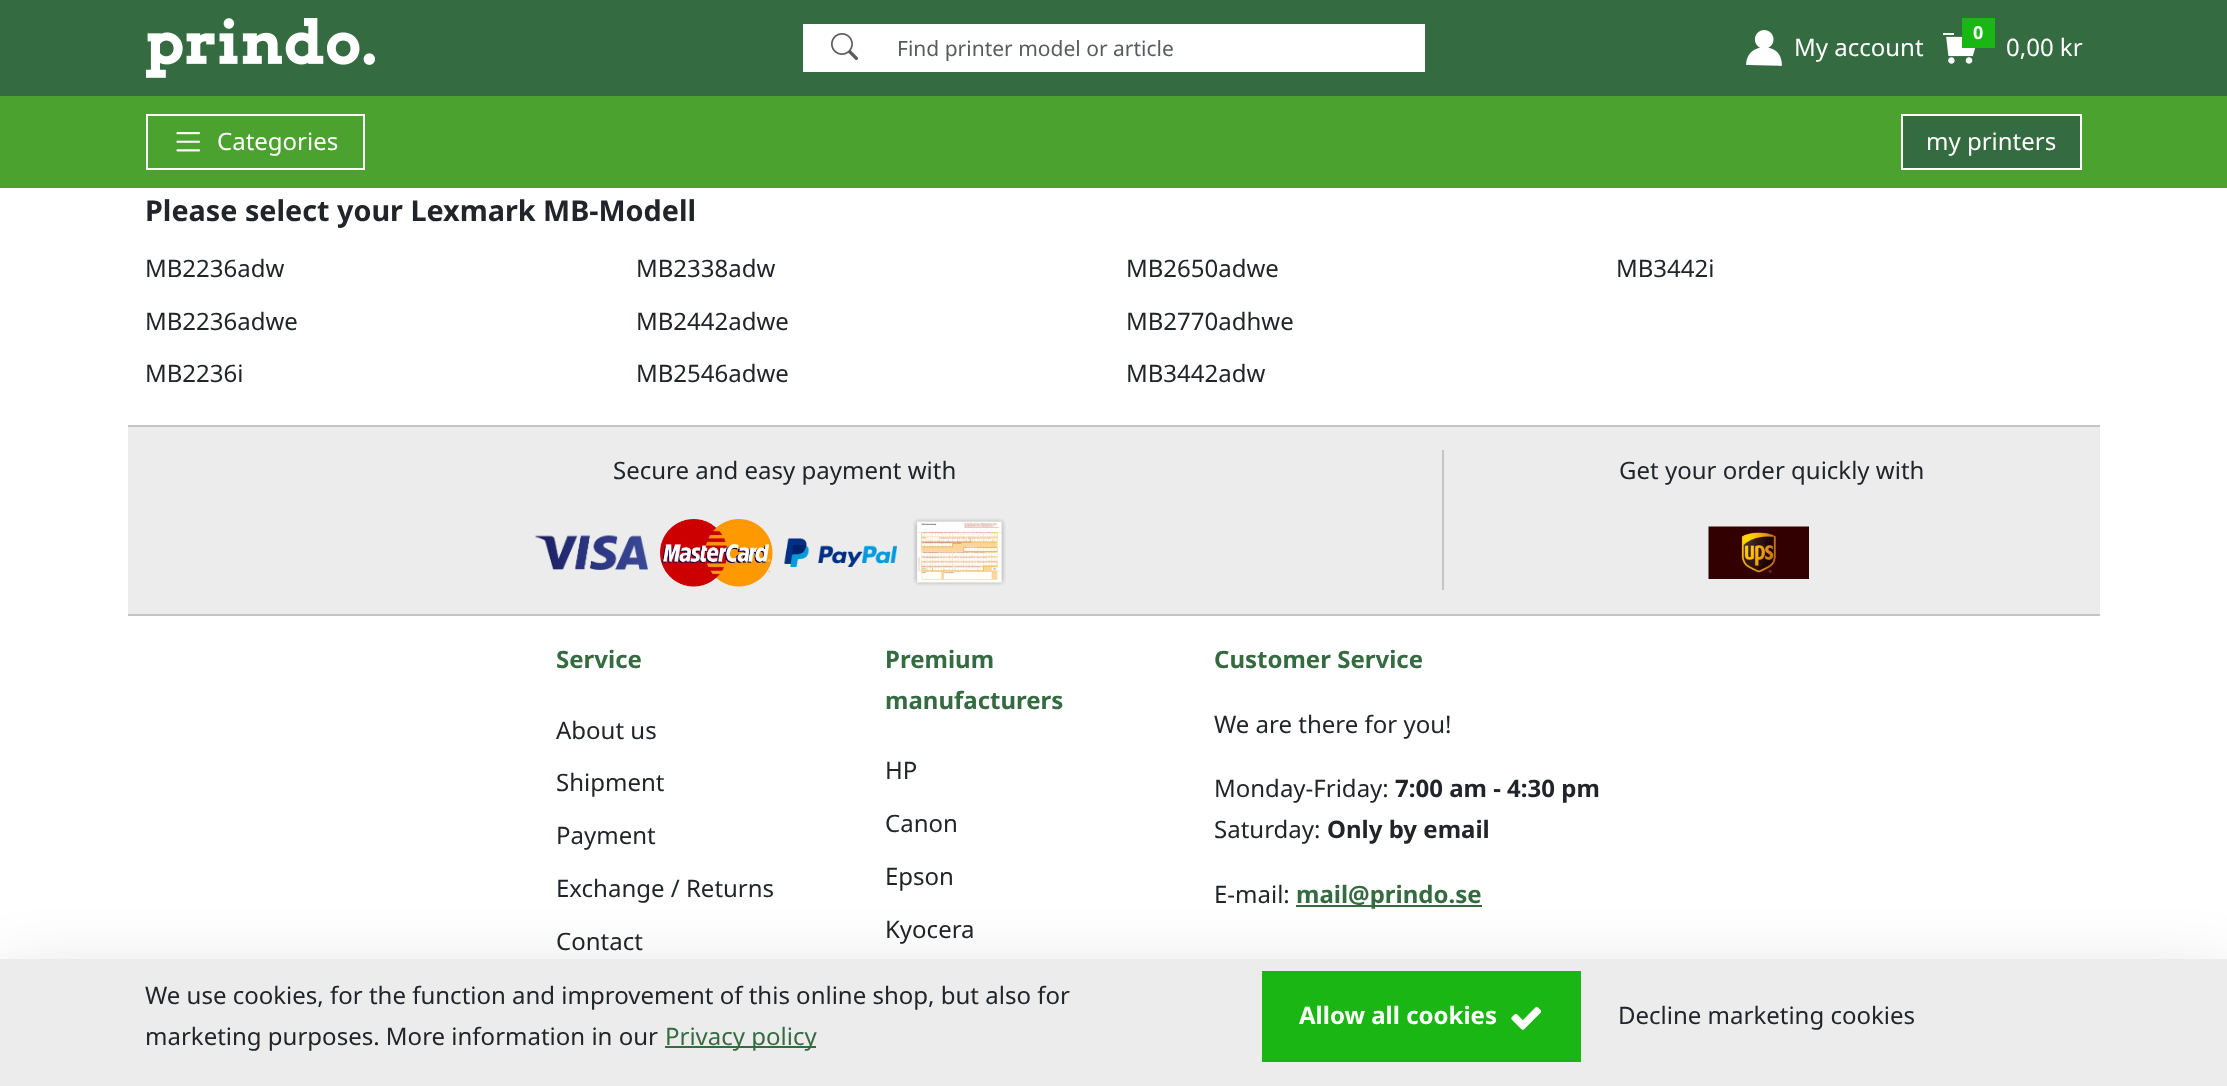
async function draw(canvas) {
  canvas.width = 2227;
  canvas.height = 1086;
  const ctx = canvas.getContext('2d');
  ctx.miterLimit = 4;
  ctx.fontKerning = 'normal';
  function label(s, x, y, font, color) {
    ctx.font = font;
    ctx.fillStyle = color;
    ctx.fillText(s, x, y);
  }
  function rect(x, y, w, h, color) {
    ctx.fillStyle = color;
    ctx.fillRect(x, y, w, h);
  }
  async function image(src, x, y, w, h) {
    const img = new Image();
    img.src = src;
    await img.decode();
    ctx.drawImage(img, x, y, w, h);
  }

  rect(0, 0, 2227, 1086, '#fff');
  rect(0, 0, 2227, 96, '#356b40');
  await image('assets/img1.png', 146, 18, 229, 60);
  rect(803, 24, 622, 48, '#fff');
  await image('assets/img2.png', 831, 33, 27, 27);
  label('Find printer model or article', 897, 56, '21px Noto Sans', '#595c5f');
  await image('assets/img3.png', 1746, 30, 36, 36);
  label('My account', 1794, 56, '24px Noto Sans', '#fff');
  await image('assets/img4.png', 1943, 33, 33, 31);
  rect(1962, 18, 33, 30, '#1ab613');
  label('0', 1973, 39, 'bold 18px Noto Sans', '#fff');
  label('0,00 kr', 2006, 56, '24px Noto Sans', '#fff');
  rect(0, 96, 2227, 92, '#4ca22f');
  ctx.strokeStyle = '#fff';
  ctx.lineWidth = 2;
  ctx.strokeRect(147, 115, 217, 54);
  await image('assets/img5.png', 176, 132, 25, 20);
  label('Categories', 217, 150, '24px Noto Sans', '#fff');
  ctx.fillStyle = '#356b40';
  ctx.beginPath();
  ctx.rect(1902, 115, 179, 54);
  ctx.fill();
  ctx.stroke();
  label('my printers', 1926, 150, '24px Noto Sans', '#fff');
  label('Please select your Lexmark MB-Modell', 145, 221, 'bold 28.75px Noto Sans', '#212529');
  label('MB2236adw', 145, 277, '24px Noto Sans', '#212529');
  label('MB2338adw', 636, 277, '24px Noto Sans', '#212529');
  label('MB2650adwe', 1126, 277, '24px Noto Sans', '#212529');
  label('MB3442i', 1616, 277, '24px Noto Sans', '#212529');
  label('MB2236adwe', 145, 330, '24px Noto Sans', '#212529');
  label('MB2442adwe', 636, 330, '24px Noto Sans', '#212529');
  label('MB2770adhwe', 1126, 330, '24px Noto Sans', '#212529');
  label('MB2236i', 145, 382, '24px Noto Sans', '#212529');
  label('MB2546adwe', 636, 382, '24px Noto Sans', '#212529');
  label('MB3442adw', 1126, 382, '24px Noto Sans', '#212529');
  rect(128, 427, 1972, 187, '#ececec');
  rect(128, 425, 1972, 2, '#c4c4c4');
  rect(128, 614, 1972, 2, '#c4c4c4');
  rect(1442, 450, 2, 140, '#c4c4c4');
  label('Secure and easy payment with', 613, 479, '24px Noto Sans', '#212529');
  await image('assets/img6.png', 535, 535, 113, 35);
  await image('assets/img7.png', 660, 519, 113, 68);
  await image('assets/img8.png', 784, 538, 113, 29);
  await image('assets/img9.png', 913, 518, 93, 68);
  label('Get your order quickly with', 1619, 479, '24px Noto Sans', '#212529');
  await image('assets/img10.png', 1708, 526, 101, 53);
  label('Service', 556, 668, 'bold 24px Noto Sans', '#356b40');
  label('About us', 556, 739, '24px Noto Sans', '#212529');
  label('Shipment', 556, 791, '24px Noto Sans', '#212529');
  label('Payment', 556, 844, '24px Noto Sans', '#212529');
  label('Exchange / Returns', 556, 897, '24px Noto Sans', '#212529');
  label('Contact', 556, 950, '24px Noto Sans', '#212529');
  label('Premium', 885, 668, 'bold 24px Noto Sans', '#356b40');
  label('manufacturers', 885, 709, 'bold 24px Noto Sans', '#356b40');
  label('HP', 885, 779, '24px Noto Sans', '#212529');
  label('Canon', 885, 832, '24px Noto Sans', '#212529');
  label('Epson', 885, 885, '24px Noto Sans', '#212529');
  label('Kyocera', 885, 938, '24px Noto Sans', '#212529');
  label('Customer Service', 1214, 668, 'bold 24px Noto Sans', '#356b40');
  label('We are there for you!', 1214, 733, '24px Noto Sans', '#212529');
  label('Monday-Friday:', 1214, 797, '24px Noto Sans', '#212529');
  label('7:00 am - 4:30 pm', 1395, 797, 'bold 24px Noto Sans', '#212529');
  label('Saturday:', 1214, 838, '24px Noto Sans', '#212529');
  label('Only by email', 1327, 838, 'bold 24px Noto Sans', '#212529');
  label('E-mail:', 1214, 903, '24px Noto Sans', '#212529');
  rect(1296, 905, 186, 2, '#356b40');
  label('mail@prindo.se', 1296, 903, 'bold 24px Noto Sans', '#356b40');
  ctx.fillStyle = '#0000002e';
  ctx.filter = 'blur(36px)';
  ctx.beginPath();
  ctx.rect(0, 983, 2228, 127);
  ctx.fill();
  ctx.filter = 'none';
  rect(0, 959, 2227, 127, '#ececec');
  label('We use cookies, for the function and improvement of this online shop, but also for', 145, 1004, '24px Noto Sans', '#212529');
  label('marketing purposes. More information in our', 145, 1045, '24px Noto Sans', '#212529');
  rect(665, 1046, 151, 2, '#356b40');
  label('Privacy policy', 665, 1045, '24px Noto Sans', '#356b40');
  rect(1262, 971, 319, 91, '#1ab613');
  label('Allow all cookies', 1299, 1024, 'bold 24px Noto Sans', '#fff');
  await image('assets/img11.png', 1511, 1006, 31, 24);
  label('Decline marketing cookies', 1618, 1024, '24px Noto Sans', '#212529');
}

draw(document.querySelector('canvas'));
